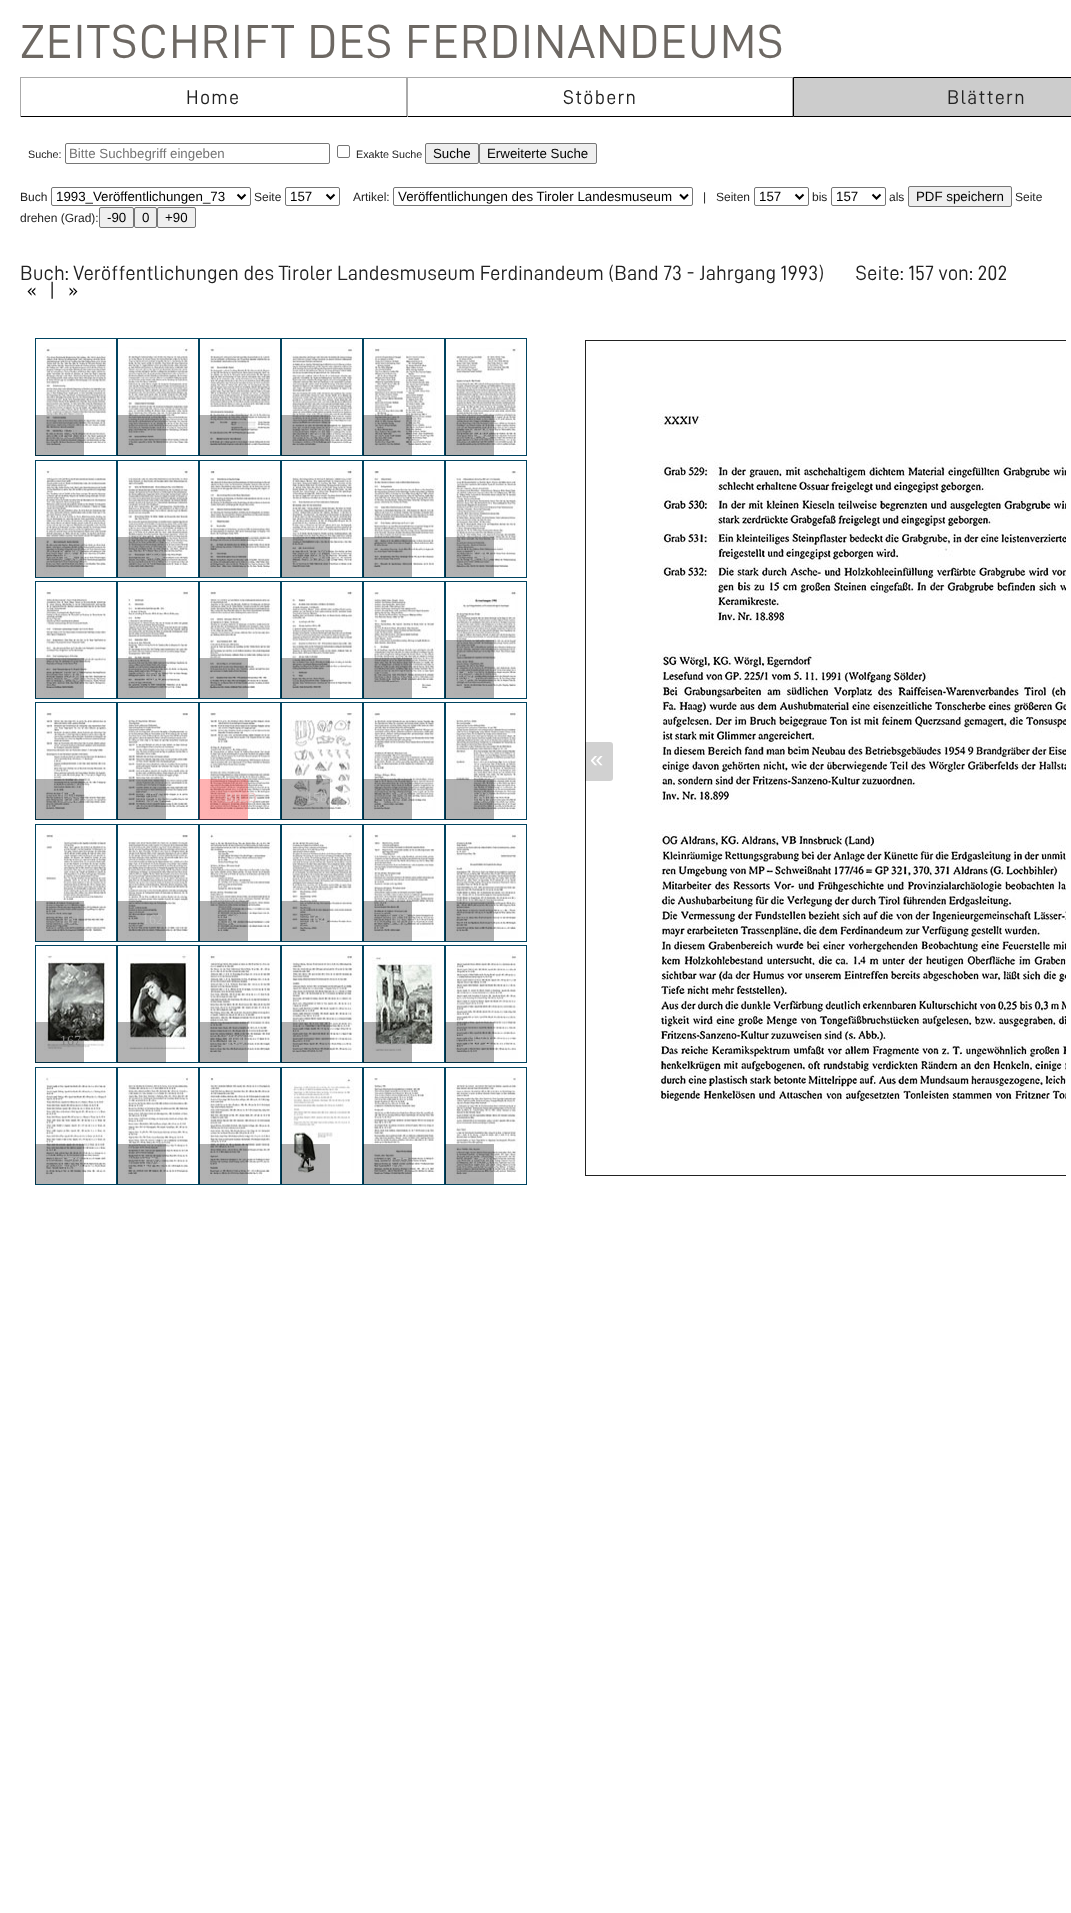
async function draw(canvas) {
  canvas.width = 1071;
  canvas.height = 1913;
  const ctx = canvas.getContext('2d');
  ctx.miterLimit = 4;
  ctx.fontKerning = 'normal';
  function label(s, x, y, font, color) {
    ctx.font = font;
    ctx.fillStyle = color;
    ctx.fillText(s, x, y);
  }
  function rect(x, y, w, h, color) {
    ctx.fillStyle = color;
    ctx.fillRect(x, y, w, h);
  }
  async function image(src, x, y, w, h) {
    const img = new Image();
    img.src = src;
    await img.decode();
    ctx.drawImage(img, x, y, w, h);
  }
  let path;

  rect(0, 0, 1071, 1913, '#fff');
  ctx.letterSpacing = '1.3px';
  label('ZEITSCHRIFT DES FERDINANDEUMS', 20, 58, '48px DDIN', '#6d6863');
  rect(20, 77, 773, 1, '#aaa');
  rect(406, 77, 1, 40, '#aaa');
  rect(20, 116, 387, 1, '#000');
  rect(20, 77, 1, 40, '#aaa');
  label('Home', 186, 104, '20px DDIN', '#222');
  rect(792, 77, 1, 40, '#aaa');
  rect(407, 116, 386, 1, '#000');
  rect(407, 77, 1, 40, '#aaa');
  label('Stöbern', 563, 104, '20px DDIN', '#222');
  ctx.fillStyle = '#ccc';
  ctx.beginPath();
  ctx.rect(793.5, 77.5, 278, 39);
  ctx.fill();
  ctx.strokeStyle = '#000';
  ctx.stroke();
  label('Blättern', 947, 104, '20px DDIN', '#222');
  ctx.letterSpacing = '0px';
  label('Suche:', 28, 158, '10.75px Liberation Sans', '#222');
  ctx.beginPath();
  ctx.roundRect(65.5, 143.5, 264, 20, 1.5);
  ctx.strokeStyle = '#767676';
  ctx.stroke();
  label('Bitte Suchbegriff eingeben', 69, 158, '13.3px Liberation Sans', '#757575');
  ctx.beginPath();
  ctx.roundRect(337.5, 145.5, 12, 12, 1.5);
  ctx.stroke();
  label('Exakte Suche', 356, 158, '10.75px Liberation Sans', '#222');
  ctx.fillStyle = '#efefef';
  ctx.beginPath();
  ctx.roundRect(425.5, 143.5, 53, 20, 1.5);
  ctx.fill();
  ctx.stroke();
  label('Suche', 433, 158, '13.3px Liberation Sans', '#000');
  ctx.fillStyle = '#efefef';
  ctx.beginPath();
  ctx.roundRect(479.5, 143.5, 117, 20, 1.5);
  ctx.fill();
  ctx.stroke();
  label('Erweiterte Suche', 487, 158, '13.3px Liberation Sans', '#000');
  label('Buch', 20, 201, '12px Liberation Sans', '#222');
  ctx.beginPath();
  ctx.roundRect(51.5, 187.5, 199, 18, 1.5);
  ctx.stroke();
  path = new Path2D('M237.5 194.5L241.5 198.5L245.5 194.5');
  ctx.strokeStyle = '#000';
  ctx.lineWidth = 2;
  ctx.stroke(path);
  label('1993_Veröffentlichungen_73', 56, 201, '13.3px Liberation Sans', '#000');
  label('Seite', 254, 201, '12px Liberation Sans', '#222');
  ctx.beginPath();
  ctx.roundRect(285.5, 187.5, 54, 18, 1.5);
  ctx.strokeStyle = '#767676';
  ctx.lineWidth = 1;
  ctx.stroke();
  path = new Path2D('M326.5 194.5L330.5 198.5L334.5 194.5');
  ctx.strokeStyle = '#000';
  ctx.lineWidth = 2;
  ctx.stroke(path);
  label('157', 290, 201, '13.3px Liberation Sans', '#000');
  label('Artikel:', 353, 201, '12px Liberation Sans', '#222');
  ctx.beginPath();
  ctx.roundRect(393.5, 187.5, 299, 18, 1.5);
  ctx.strokeStyle = '#767676';
  ctx.lineWidth = 1;
  ctx.stroke();
  path = new Path2D('M680 194.5L684 198.5L688 194.5');
  ctx.strokeStyle = '#000';
  ctx.lineWidth = 2;
  ctx.stroke(path);
  label('Veröffentlichungen des Tiroler Landesmuseum', 398, 201, '13.3px Liberation Sans', '#000');
  label('|', 703, 201, '12px Liberation Sans', '#222');
  label('Seiten', 716, 201, '12px Liberation Sans', '#222');
  ctx.beginPath();
  ctx.roundRect(754.5, 187.5, 54, 18, 1.5);
  ctx.strokeStyle = '#767676';
  ctx.lineWidth = 1;
  ctx.stroke();
  path = new Path2D('M795.5 194.5L799.5 198.5L803.5 194.5');
  ctx.strokeStyle = '#000';
  ctx.lineWidth = 2;
  ctx.stroke(path);
  label('157', 759, 201, '13.3px Liberation Sans', '#000');
  label('bis', 812, 201, '12px Liberation Sans', '#222');
  ctx.beginPath();
  ctx.roundRect(831.5, 187.5, 54, 18, 1.5);
  ctx.strokeStyle = '#767676';
  ctx.lineWidth = 1;
  ctx.stroke();
  path = new Path2D('M872.5 194.5L876.5 198.5L880.5 194.5');
  ctx.strokeStyle = '#000';
  ctx.lineWidth = 2;
  ctx.stroke(path);
  label('157', 836, 201, '13.3px Liberation Sans', '#000');
  label('als', 889, 201, '12px Liberation Sans', '#222');
  ctx.fillStyle = '#efefef';
  ctx.beginPath();
  ctx.roundRect(908.5, 186.5, 103, 20, 1.5);
  ctx.fill();
  ctx.strokeStyle = '#767676';
  ctx.lineWidth = 1;
  ctx.stroke();
  label('PDF speichern', 916, 201, '13.3px Liberation Sans', '#000');
  label('Seite', 1015, 201, '12px Liberation Sans', '#222');
  label('drehen (Grad):', 20, 222, '12px Liberation Sans', '#222');
  ctx.fillStyle = '#efefef';
  ctx.beginPath();
  ctx.roundRect(99.5, 207.5, 34, 20, 1.5);
  ctx.fill();
  ctx.stroke();
  label('-90', 107, 222, '13.3px Liberation Sans', '#000');
  ctx.fillStyle = '#efefef';
  ctx.beginPath();
  ctx.roundRect(134.5, 207.5, 22, 20, 1.5);
  ctx.fill();
  ctx.stroke();
  label('0', 142, 222, '13.3px Liberation Sans', '#000');
  ctx.fillStyle = '#efefef';
  ctx.beginPath();
  ctx.roundRect(157.5, 207.5, 38, 20, 1.5);
  ctx.fill();
  ctx.stroke();
  label('+90', 165, 222, '13.3px Liberation Sans', '#000');
  label('Buch: Veröffentlichungen des Tiroler Landesmuseum Ferdinandeum (Band 73 - Jahrgang 1993)       Seite: 157 von: 202', 20, 280, '20.75px DDIN', '#222');
  label('«', 27, 297, '20.75px DDIN', '#000');
  label('|', 49, 297, '20.75px DDIN', '#222');
  label('»', 68, 297, '20.75px DDIN', '#000');
  ctx.strokeStyle = '#004461';
  ctx.strokeRect(35.5, 338.5, 81, 117);
  await image('assets/img1.png', 44, 347, 64, 105);
  rect(35, 415, 49, 41, '#0000004d');
  label('13', 60, 438, '14px Liberation Serif', '#b9b9b9');
  ctx.strokeRect(117.5, 338.5, 81, 117);
  await image('assets/img2.png', 126, 347, 64, 105);
  rect(117, 415, 49, 41, '#0000004d');
  ctx.strokeRect(199.5, 338.5, 81, 117);
  await image('assets/img3.png', 208, 347, 64, 105);
  rect(199, 415, 49, 41, '#0000004d');
  ctx.strokeRect(281.5, 338.5, 81, 117);
  await image('assets/img4.png', 290, 347, 64, 105);
  rect(281, 415, 49, 41, '#0000004d');
  label('140', 306, 438, '14px Liberation Serif', '#b2b2b2');
  ctx.strokeRect(363.5, 338.5, 81, 117);
  await image('assets/img5.png', 372, 348, 64, 104);
  rect(363, 415, 49, 41, '#0000004d');
  ctx.strokeRect(445.5, 338.5, 81, 117);
  await image('assets/img6.png', 454, 348, 64, 104);
  rect(445, 415, 49, 41, '#0000004d');
  label('142', 470, 438, '14px Liberation Serif', '#b9b9b9');
  ctx.strokeRect(35.5, 460.5, 81, 117);
  await image('assets/img7.png', 44, 470, 64, 104);
  rect(35, 537, 49, 40, '#0000004d');
  label('143', 60, 560, '14px Liberation Serif', '#b9b9b9');
  ctx.strokeRect(117.5, 460.5, 81, 117);
  await image('assets/img8.png', 126, 469, 64, 105);
  rect(117, 537, 49, 40, '#0000004d');
  label('144', 142, 560, '14px Liberation Serif', '#b2b2b2');
  ctx.strokeRect(199.5, 460.5, 81, 117);
  await image('assets/img9.png', 208, 469, 64, 105);
  rect(199, 537, 49, 40, '#0000004d');
  ctx.strokeRect(281.5, 460.5, 81, 117);
  await image('assets/img10.png', 290, 469, 64, 105);
  rect(281, 537, 49, 40, '#0000004d');
  label('146', 306, 560, '14px Liberation Serif', '#b2b2b2');
  ctx.strokeRect(363.5, 460.5, 81, 117);
  await image('assets/img11.png', 372, 470, 64, 104);
  rect(363, 537, 49, 40, '#0000004d');
  ctx.strokeRect(445.5, 460.5, 81, 117);
  await image('assets/img12.png', 454, 471, 64, 103);
  rect(445, 537, 49, 40, '#0000004d');
  label('148', 470, 560, '14px Liberation Serif', '#b9b9b9');
  ctx.strokeRect(35.5, 581.5, 81, 117);
  await image('assets/img13.png', 44, 590, 64, 105);
  rect(35, 658, 49, 40, '#0000004d');
  label('149', 60, 681, '14px Liberation Serif', '#b2b2b2');
  ctx.strokeRect(117.5, 581.5, 81, 117);
  await image('assets/img14.png', 126, 591, 64, 104);
  rect(117, 658, 49, 40, '#0000004d');
  label('150', 142, 681, '14px Liberation Serif', '#b9b9b9');
  ctx.strokeRect(199.5, 581.5, 81, 117);
  await image('assets/img15.png', 208, 591, 64, 104);
  rect(199, 658, 49, 40, '#0000004d');
  ctx.strokeRect(281.5, 581.5, 81, 117);
  await image('assets/img16.png', 290, 591, 64, 104);
  rect(281, 658, 49, 40, '#0000004d');
  ctx.strokeRect(363.5, 581.5, 81, 117);
  await image('assets/img17.png', 372, 592, 64, 102);
  rect(363, 658, 49, 40, '#0000004d');
  label('153', 388, 681, '14px Liberation Serif', '#b9b9b9');
  ctx.strokeRect(445.5, 581.5, 81, 117);
  await image('assets/img18.png', 454, 590, 64, 105);
  rect(445, 640, 49, 58, '#0000004d');
  label('154', 455, 681, '14px Liberation Serif', '#b2b2b2');
  ctx.strokeRect(35.5, 702.5, 81, 117);
  await image('assets/img19.png', 44, 712, 64, 104);
  rect(35, 779, 49, 41, '#0000004d');
  label('155', 60, 802, '14px Liberation Serif', '#b9b9b9');
  ctx.strokeRect(117.5, 702.5, 81, 117);
  await image('assets/img20.png', 126, 713, 64, 102);
  rect(117, 779, 49, 41, '#0000004d');
  label('156', 142, 802, '14px Liberation Serif', '#b9b9b9');
  ctx.strokeRect(199.5, 702.5, 81, 117);
  await image('assets/img21.png', 208, 712, 64, 104);
  rect(199, 779, 49, 41, '#ff00004d');
  label('BILD', 224, 802, '14px Liberation Serif', '#ebc5c5');
  ctx.strokeRect(281.5, 702.5, 81, 117);
  await image('assets/img22.png', 290, 713, 64, 103);
  rect(281, 779, 49, 41, '#0000004d');
  label('158', 306, 802, '14px Liberation Serif', '#c3c3c3');
  ctx.strokeRect(363.5, 702.5, 81, 117);
  await image('assets/img23.png', 372, 711, 64, 105);
  rect(363, 779, 49, 41, '#0000004d');
  label('159', 388, 802, '14px Liberation Serif', '#b2b2b2');
  ctx.strokeRect(445.5, 702.5, 81, 117);
  await image('assets/img24.png', 454, 711, 64, 105);
  rect(445, 779, 49, 41, '#0000004d');
  label('160', 470, 802, '14px Liberation Serif', '#b9b9b9');
  ctx.strokeRect(35.5, 824.5, 81, 117);
  await image('assets/img25.png', 44, 834, 64, 104);
  rect(35, 901, 49, 40, '#0000004d');
  label('161', 60, 924, '14px Liberation Serif', '#b9b9b9');
  ctx.strokeRect(117.5, 824.5, 81, 117);
  await image('assets/img26.png', 126, 834, 64, 104);
  rect(117, 901, 49, 40, '#0000004d');
  label('162', 142, 924, '14px Liberation Serif', '#c3c3c3');
  ctx.strokeRect(199.5, 824.5, 81, 117);
  await image('assets/img27.png', 208, 833, 64, 105);
  rect(199, 901, 49, 40, '#0000004d');
  label('16', 224, 924, '14px Liberation Serif', '#b9b9b9');
  ctx.strokeRect(281.5, 824.5, 81, 117);
  await image('assets/img28.png', 290, 833, 64, 103);
  rect(281, 901, 49, 40, '#0000004d');
  label('164', 306, 924, '14px Liberation Serif', '#b9b9b9');
  ctx.strokeRect(363.5, 824.5, 81, 117);
  await image('assets/img29.png', 372, 834, 64, 103);
  rect(363, 901, 49, 40, '#0000004d');
  label('165', 388, 924, '14px Liberation Serif', '#b2b2b2');
  ctx.strokeRect(445.5, 824.5, 81, 117);
  await image('assets/img30.png', 454, 834, 64, 104);
  rect(445, 901, 49, 40, '#0000004d');
  ctx.strokeRect(35.5, 945.5, 81, 117);
  await image('assets/img31.png', 44, 955, 64, 96);
  rect(35, 1022, 49, 41, '#0000004d');
  label('167', 60, 1045, '14px Liberation Serif', '#868685');
  ctx.strokeRect(117.5, 945.5, 81, 117);
  await image('assets/img32.png', 126, 954, 64, 96);
  rect(117, 1022, 49, 41, '#0000004d');
  ctx.strokeRect(199.5, 945.5, 81, 117);
  await image('assets/img33.png', 208, 954, 64, 104);
  rect(199, 1022, 49, 41, '#0000004d');
  label('169', 224, 1045, '14px Liberation Serif', '#b9b9b9');
  ctx.strokeRect(281.5, 945.5, 81, 117);
  await image('assets/img34.png', 290, 954, 64, 105);
  rect(281, 1022, 49, 41, '#0000004d');
  ctx.strokeRect(363.5, 945.5, 81, 117);
  await image('assets/img35.png', 372, 957, 64, 94);
  rect(363, 1022, 49, 41, '#0000004d');
  label('171', 388, 1045, '14px Liberation Serif', '#a2a4a2');
  ctx.strokeRect(445.5, 945.5, 81, 117);
  await image('assets/img36.png', 454, 954, 64, 105);
  rect(445, 1022, 49, 41, '#0000004d');
  label('172', 470, 1045, '14px Liberation Serif', '#b9b9b9');
  ctx.strokeRect(35.5, 1067.5, 81, 117);
  await image('assets/img37.png', 44, 1077, 64, 104);
  rect(35, 1144, 49, 40, '#0000004d');
  label('173', 60, 1167, '14px Liberation Serif', '#b9b9b9');
  ctx.strokeRect(117.5, 1067.5, 81, 117);
  await image('assets/img38.png', 126, 1077, 64, 103);
  rect(117, 1144, 49, 40, '#0000004d');
  label('174', 142, 1167, '14px Liberation Serif', '#b9b9b9');
  ctx.strokeRect(199.5, 1067.5, 81, 117);
  await image('assets/img39.png', 208, 1077, 64, 104);
  rect(199, 1144, 49, 40, '#0000004d');
  ctx.strokeRect(281.5, 1067.5, 81, 117);
  await image('assets/img40.png', 290, 1077, 64, 96);
  rect(281, 1144, 49, 40, '#0000004d');
  label('1', 306, 1167, '14px Liberation Serif', '#b2b2b2');
  ctx.strokeRect(363.5, 1067.5, 81, 117);
  await image('assets/img41.png', 372, 1078, 64, 103);
  rect(363, 1144, 49, 40, '#0000004d');
  label('177', 388, 1167, '14px Liberation Serif', '#b9b9b9');
  ctx.strokeRect(445.5, 1067.5, 81, 117);
  await image('assets/img42.png', 454, 1077, 64, 104);
  rect(445, 1144, 49, 40, '#0000004d');
  label('178', 470, 1167, '14px Liberation Serif', '#b2b2b2');
  ctx.save();
  ctx.beginPath();
  ctx.rect(585, 328, 481, 852);
  ctx.clip();
  ctx.strokeStyle = '#222';
  ctx.strokeRect(585.5, 340.5, 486, 835);
  ctx.restore();
  ctx.fillStyle = '#0000002e';
  ctx.beginPath();
  ctx.roundRect(585, 742, 28, 39, [0, 3, 3, 0]);
  ctx.fill();
  label('«', 590, 767, '24px Liberation Sans', '#fff');
  await image('assets/img43.png', 658, 413, 408, 689);
}

draw(document.querySelector('canvas'));
